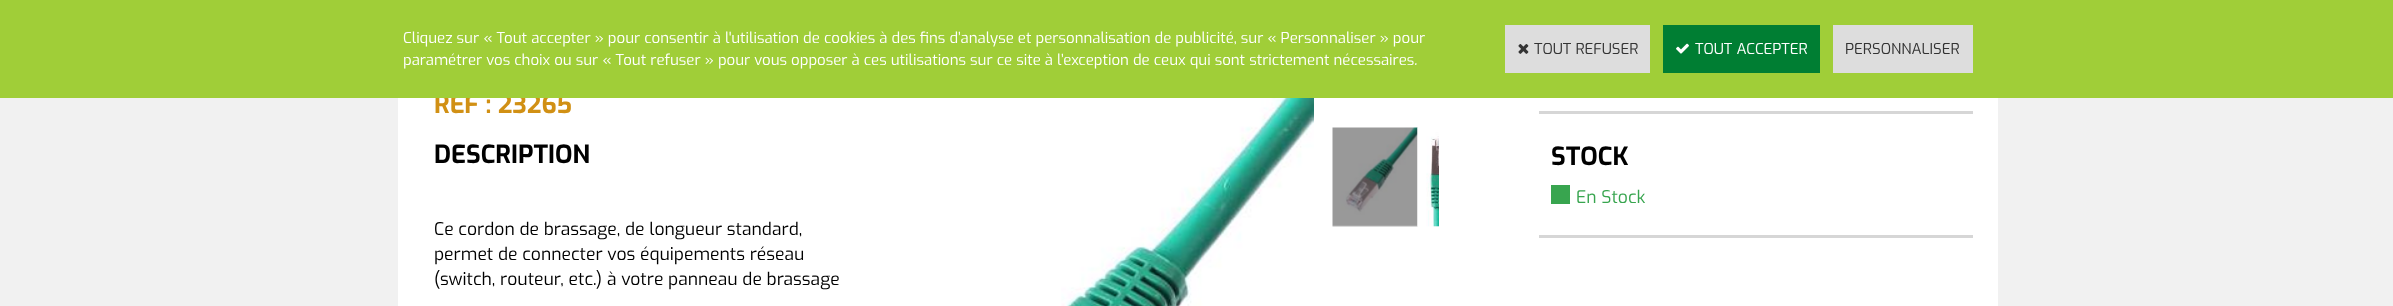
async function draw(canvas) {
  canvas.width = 2393;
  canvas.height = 306;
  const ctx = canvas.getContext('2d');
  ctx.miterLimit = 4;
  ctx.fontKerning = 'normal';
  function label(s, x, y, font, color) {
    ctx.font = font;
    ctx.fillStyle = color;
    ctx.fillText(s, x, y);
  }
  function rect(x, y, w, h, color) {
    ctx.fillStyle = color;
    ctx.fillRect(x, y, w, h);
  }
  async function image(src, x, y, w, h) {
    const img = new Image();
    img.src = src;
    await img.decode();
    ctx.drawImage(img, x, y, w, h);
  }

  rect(0, 0, 2393, 306, '#f1f1f1');
  rect(398, 98, 1600, 208, '#fff');
  label('REF : 23265', 434, 113, 'bold 25px Exo', '#d19014');
  rect(0, 0, 2393, 98, '#a0ce38');
  label('Cliquez sur « Tout accepter » pour consentir à l\'utilisation de cookies à des fins d’analyse et personnalisation de publicité, sur « Personnaliser » pour', 403, 43, '15px Exo', '#fff');
  label('paramétrer vos choix ou sur « Tout refuser » pour vous opposer à ces utilisations sur ce site à l’exception de ceux qui sont strictement nécessaires.', 403, 65, '15px Exo', '#fff');
  rect(1505, 25, 145, 48, '#ddd');
  await image('assets/img1.png', 1518, 44, 11, 10);
  label('TOUT REFUSER', 1534, 54, '15px Exo', '#333');
  rect(1663, 25, 157, 48, '#007e33');
  await image('assets/img2.png', 1676, 43, 13, 11);
  label('TOUT ACCEPTER', 1695, 54, '15px Exo', '#fff');
  rect(1833, 25, 140, 48, '#ddd');
  label('PERSONNALISER', 1845, 54, '15px Exo', '#333');
  label('DESCRIPTION', 434, 163, 'bold 25px Exo', '#000');
  label('Ce cordon de brassage, de longueur standard,', 434, 235, '17.5px Exo', '#000');
  label('permet de connecter vos équipements réseau', 434, 260, '17.5px Exo', '#000');
  label('(switch, routeur, etc.) à votre panneau de brassage', 434, 285, '17.5px Exo', '#000');
  await image('assets/img3.png', 1061, 98, 253, 208);
  await image('assets/img4.png', 1332, 127, 86, 100);
  await image('assets/img5.png', 1417, 127, 22, 100);
  rect(1539, 111, 434, 3, '#d6d6d6');
  rect(1539, 235, 434, 3, '#d6d6d6');
  label('STOCK', 1551, 165, 'bold 25px Exo', '#000');
  rect(1551, 185, 19, 19, '#38a54f');
  label('En Stock', 1576, 203, '17.5px Exo', '#38a54f');
}

draw(document.querySelector('canvas'));
